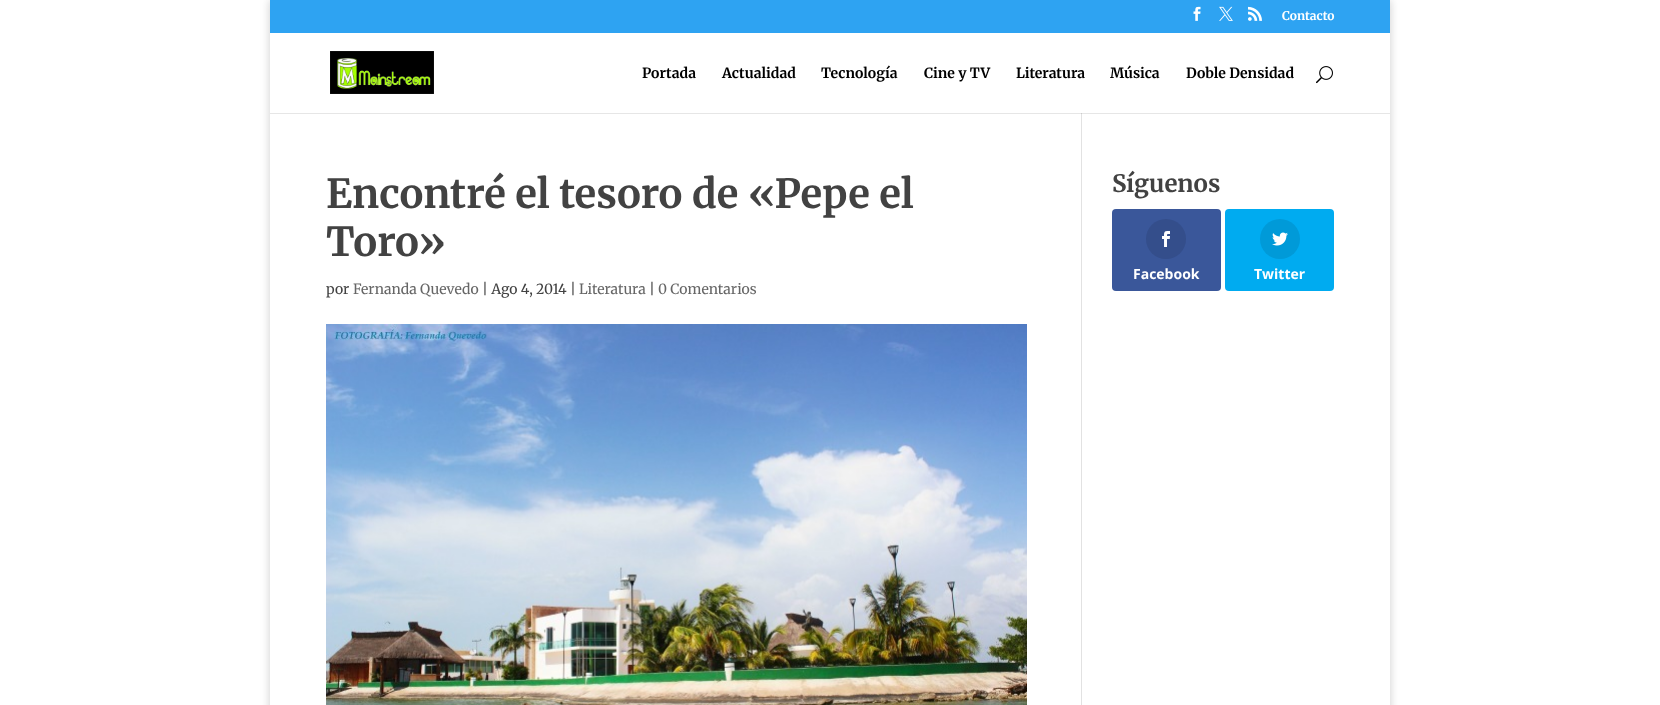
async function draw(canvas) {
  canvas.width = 1660;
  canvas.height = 705;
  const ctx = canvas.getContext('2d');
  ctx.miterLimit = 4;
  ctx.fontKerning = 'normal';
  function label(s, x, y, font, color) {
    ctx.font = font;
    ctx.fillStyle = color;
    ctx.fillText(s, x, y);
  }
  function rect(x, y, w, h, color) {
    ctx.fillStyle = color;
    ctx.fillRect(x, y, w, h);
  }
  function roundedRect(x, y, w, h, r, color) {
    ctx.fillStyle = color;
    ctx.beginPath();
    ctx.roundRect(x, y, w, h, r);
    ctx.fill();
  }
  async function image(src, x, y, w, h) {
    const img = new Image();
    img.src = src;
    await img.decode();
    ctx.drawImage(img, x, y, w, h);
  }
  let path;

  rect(0, 0, 1660, 705, '#fff');
  rect(270, 113, 1120, 1, '#e6e6e6');
  ctx.save();
  path = new Path2D('M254 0H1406V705H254ZM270 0H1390V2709H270Z');
  ctx.clip(path, 'evenodd');
  ctx.fillStyle = '#00000033';
  ctx.filter = 'blur(5px)';
  ctx.beginPath();
  ctx.rect(270, 0, 1120, 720);
  ctx.fill();
  ctx.filter = 'none';
  ctx.restore();
  rect(270, 0, 1120, 33, '#2ea3f2');
  await image('assets/img1.png', 1193, 6, 8, 15);
  await image('assets/img2.png', 1219, 6, 14, 15);
  await image('assets/img3.png', 1248, 6, 14, 15);
  label('Contacto', 1282, 20, '300 12px Merriweather', '#fff');
  rect(1081, 112, 1, 593, '#e2e2e2');
  rect(1081, 112, 1, 1, '#fff');
  await image('assets/img4.png', 330, 51, 104, 43);
  label('Portada', 642, 78, '300 14px Merriweather', '#000');
  label('Actualidad', 722, 78, '300 14px Merriweather', '#000');
  label('Tecnología', 821, 78, '300 14px Merriweather', '#000');
  label('Cine y TV', 924, 78, '300 14px Merriweather', '#000');
  label('Literatura', 1016, 78, '300 14px Merriweather', '#000');
  label('Música', 1110, 78, '300 14px Merriweather', '#000');
  label('Doble Densidad', 1186, 78, '300 14px Merriweather', '#000');
  await image('assets/img5.png', 1316, 66, 17, 18);
  rect(1081, 113, 1, 1, '#cbcbcb');
  label('Encontré el tesoro de «Pepe el', 326, 208, '300 40px Merriweather', '#424242');
  label('Toro»', 326, 256, '300 40px Merriweather', '#424242');
  label('por', 326, 294, '300 14px "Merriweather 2"', '#424242');
  label('Fernanda Quevedo', 353, 294, '300 14px "Merriweather 2"', '#666');
  label('| Ago 4, 2014 |', 482, 294, '300 14px "Merriweather 2"', '#424242');
  label('Literatura', 579, 294, '300 14px "Merriweather 2"', '#666');
  label('|', 649, 294, '300 14px "Merriweather 2"', '#424242');
  label('0 Comentarios', 658, 294, '300 14px "Merriweather 2"', '#666');
  await image('assets/img6.png', 326, 324, 701, 381);
  label('Síguenos', 1112, 192, '300 24px Merriweather', '#424242');
  roundedRect(1112, 209, 109, 82, 4, '#3a579a');
  ctx.fillStyle = '#344e8b';
  ctx.beginPath();
  ctx.arc(1166, 239, 20, 0, 2 * Math.PI);
  ctx.fill();
  await image('assets/img7.png', 1162, 231, 8, 16);
  label('Facebook', 1133, 279, 'bold 14px Open Sans', '#fff');
  roundedRect(1225, 209, 109, 82, 4, '#00abf0');
  ctx.fillStyle = '#009ad8';
  ctx.beginPath();
  ctx.arc(1280, 239, 20, 0, 2 * Math.PI);
  ctx.fill();
  await image('assets/img8.png', 1272, 232, 16, 14);
  label('Twitter', 1254, 279, 'bold 14px Open Sans', '#fff');
}

draw(document.querySelector('canvas'));
